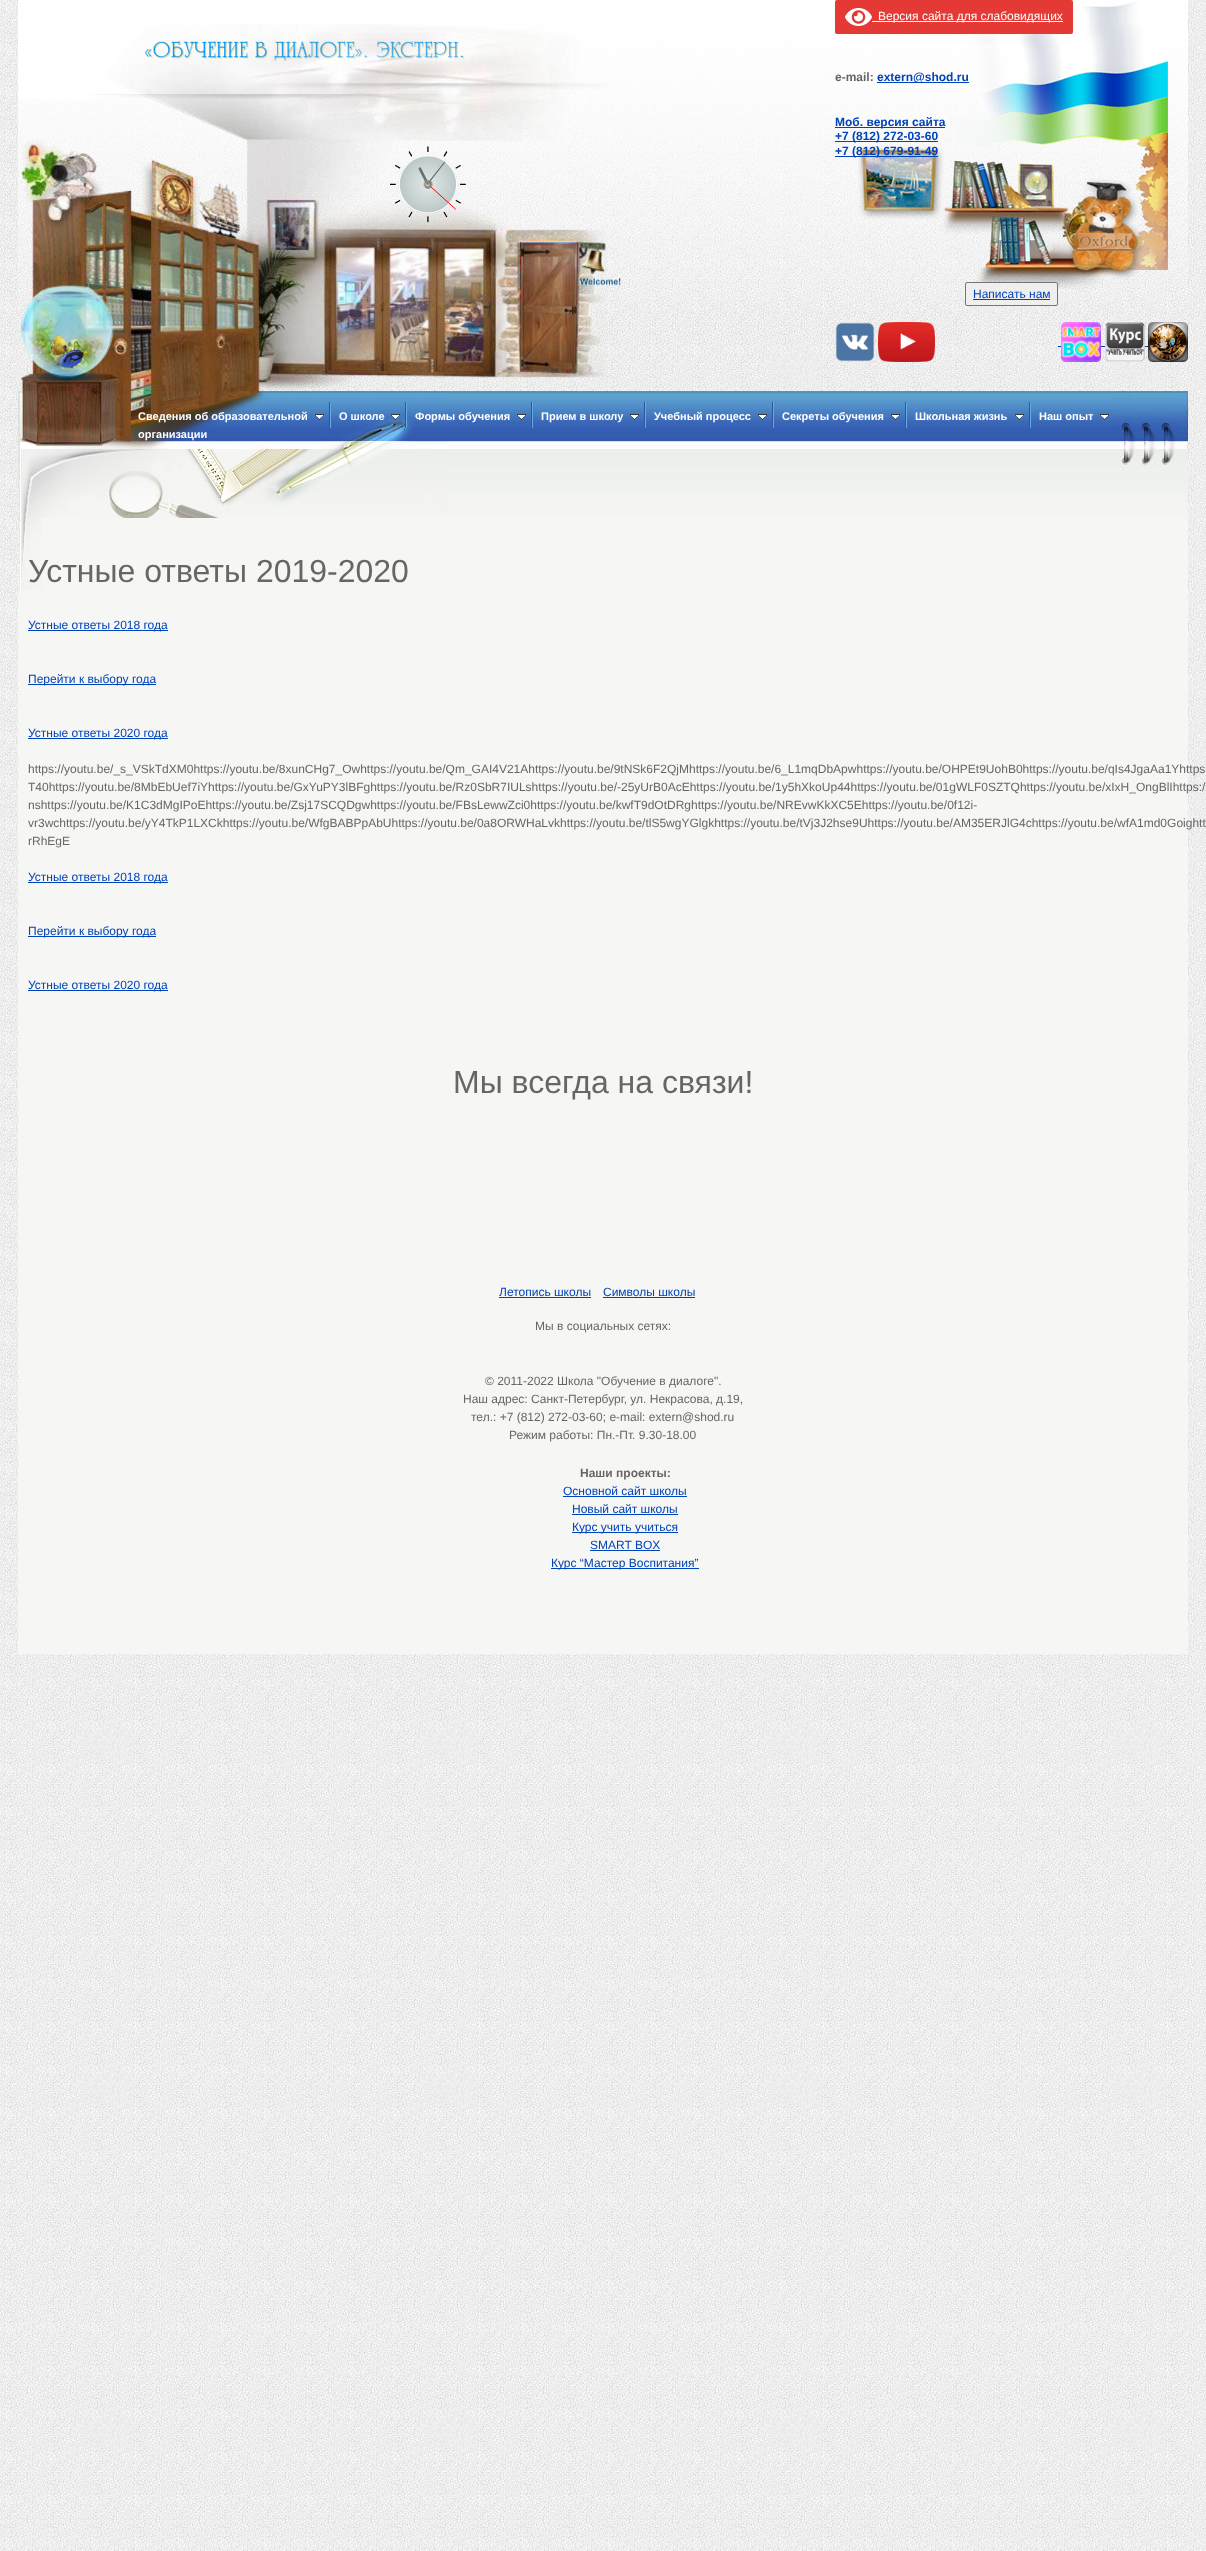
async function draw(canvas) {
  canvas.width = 1206;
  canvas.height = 2551;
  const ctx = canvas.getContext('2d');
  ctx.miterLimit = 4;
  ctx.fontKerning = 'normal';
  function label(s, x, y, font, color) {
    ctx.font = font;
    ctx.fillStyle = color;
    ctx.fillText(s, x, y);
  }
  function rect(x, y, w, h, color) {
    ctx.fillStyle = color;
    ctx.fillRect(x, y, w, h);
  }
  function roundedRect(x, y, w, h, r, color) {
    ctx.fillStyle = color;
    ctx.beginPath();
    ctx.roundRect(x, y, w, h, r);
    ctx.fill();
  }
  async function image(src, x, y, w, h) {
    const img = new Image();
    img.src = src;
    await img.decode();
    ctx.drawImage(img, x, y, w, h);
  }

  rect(0, 0, 1206, 2551, '#fff');
  await image('assets/img1.png', 0, 0, 1206, 2551);
  await image('assets/img2.png', 18, 0, 1170, 302);
  await image('assets/img4.png', 18, 41, 531, 58);
  await image('assets/img3.png', 20, 24, 601, 367);
  await image('assets/img5.png', 858, 2, 310, 287);
  roundedRect(835, 0, 238, 34, 2, '#e53935');
  await image('assets/img6.png', 845, 8, 27, 18);
  rect(872, 21, 191, 1, '#fff');
  label('Версия сайта для слабовидящих', 878, 20, '12px Liberation Sans', '#fff');
  label('e-mail:', 835, 81, 'bold 12px Liberation Sans', '#666');
  rect(877, 82, 92, 1, '#0043b9');
  label('extern@shod.ru', 877, 81, 'bold 12px Liberation Sans', '#0043b9');
  rect(835, 127, 110, 1, '#0043b9');
  label('Моб. версия сайта', 835, 126, 'bold 12px Liberation Sans', '#0043b9');
  rect(835, 141, 103, 1, '#0043b9');
  label('+7 (812) 272-03-60', 835, 140, 'bold 12px Liberation Sans', '#0043b9');
  rect(835, 156, 103, 1, '#0043b9');
  label('+7 (812) 679-91-49', 835, 155, 'bold 12px Liberation Sans', '#0043b9');
  ctx.fillStyle = '#efefef';
  ctx.beginPath();
  ctx.roundRect(965.5, 282.5, 92, 23, 1.5);
  ctx.fill();
  ctx.strokeStyle = '#767676';
  ctx.stroke();
  label('Написать нам', 973, 298, '12px Liberation Sans', '#0043b9');
  rect(973, 299, 77, 1, '#0043b9');
  await image('assets/img7.png', 835, 322, 40, 40);
  await image('assets/img8.png', 878, 322, 57, 40);
  rect(1058, 346, 3, 1, '#0043b9');
  await image('assets/img9.png', 1061, 322, 40, 40);
  rect(1101, 346, 4, 1, '#0043b9');
  await image('assets/img10.png', 1105, 322, 40, 40);
  rect(1145, 346, 3, 1, '#0043b9');
  await image('assets/img11.png', 1148, 322, 40, 40);
  await image('assets/img12.png', 448, 391, 740, 127);
  await image('assets/img13.png', 18, 391, 430, 127);
  await image('assets/img14.png', 1116, 391, 72, 80);
  await image('assets/img15.png', 329, 402, 2, 26);
  label('Cведения об образовательной', 138, 420, 'bold 11px Liberation Sans', '#fff');
  await image('assets/img16.png', 315, 414, 9, 6);
  label('организации', 138, 438, 'bold 11px Liberation Sans', '#fff');
  await image('assets/img15.png', 405, 402, 2, 26);
  label('О школе', 339, 420, 'bold 11px Liberation Sans', '#fff');
  await image('assets/img17.png', 391, 414, 9, 6);
  await image('assets/img15.png', 531, 402, 2, 26);
  label('Формы обучения', 415, 420, 'bold 11px Liberation Sans', '#fff');
  await image('assets/img16.png', 517, 414, 9, 6);
  await image('assets/img15.png', 644, 402, 2, 26);
  label('Прием в школу', 541, 420, 'bold 11px Liberation Sans', '#fff');
  await image('assets/img16.png', 630, 414, 9, 6);
  await image('assets/img15.png', 772, 402, 2, 26);
  label('Учебный процесс', 654, 420, 'bold 11px Liberation Sans', '#fff');
  await image('assets/img16.png', 758, 414, 9, 6);
  await image('assets/img15.png', 905, 402, 2, 26);
  label('Секреты обучения', 782, 420, 'bold 11px Liberation Sans', '#fff');
  await image('assets/img16.png', 891, 414, 9, 6);
  await image('assets/img15.png', 1029, 402, 2, 26);
  label('Школьная жизнь', 915, 420, 'bold 11px Liberation Sans', '#fff');
  await image('assets/img16.png', 1015, 414, 9, 6);
  label('Наш опыт', 1039, 420, 'bold 11px Liberation Sans', '#fff');
  await image('assets/img16.png', 1100, 414, 9, 6);
  rect(18, 518, 1170, 1136, '#f6f6f4');
  await image('assets/img18.png', 18, 518, 24, 72);
  label('Устные ответы 2019-2020', 28, 582, '32px Liberation Sans', '#666');
  rect(28, 630, 140, 1, '#0043b9');
  label('Устные ответы 2018 года', 28, 629, '12px Liberation Sans', '#0043b9');
  rect(28, 684, 128, 1, '#0043b9');
  label('Перейти к выбору года', 28, 683, '12px Liberation Sans', '#0043b9');
  rect(28, 738, 140, 1, '#0043b9');
  label('Устные ответы 2020 года', 28, 737, '12px Liberation Sans', '#0043b9');
  label('https://youtu.be/_s_VSkTdXM0https://youtu.be/8xunCHg7_Owhttps://youtu.be/Qm_GAI4V21Ahttps://youtu.be/9tNSk6F2QjMhttps://youtu.be/6_L1mqDbApwhttps://youtu.be/OHPEt9UohB0https://youtu.be/qIs4JgaAa1Yhttps', 28, 773, '12px Liberation Sans', '#666');
  label('T40https://youtu.be/8MbEbUef7iYhttps://youtu.be/GxYuPY3lBFghttps://youtu.be/Rz0SbR7IULshttps://youtu.be/-25yUrB0AcEhttps://youtu.be/1y5hXkoUp44https://youtu.be/01gWLF0SZTQhttps://youtu.be/xIxH_OngBlIhttps:/', 28, 791, '12px Liberation Sans', '#666');
  label('nshttps://youtu.be/K1C3dMgIPoEhttps://youtu.be/Zsj17SCQDgwhttps://youtu.be/FBsLewwZci0https://youtu.be/kwfT9dOtDRghttps://youtu.be/NREvwKkXC5Ehttps://youtu.be/0f12i-', 28, 809, '12px Liberation Sans', '#666');
  label('vr3wchttps://youtu.be/yY4TkP1LXCkhttps://youtu.be/WfgBABPpAbUhttps://youtu.be/0a8ORWHaLvkhttps://youtu.be/tlS5wgYGlgkhttps://youtu.be/tVj3J2hse9Uhttps://youtu.be/AM35ERJlG4chttps://youtu.be/wfA1md0Goightt', 28, 827, '12px Liberation Sans', '#666');
  label('rRhEgE', 28, 845, '12px Liberation Sans', '#666');
  rect(28, 882, 140, 1, '#0043b9');
  label('Устные ответы 2018 года', 28, 881, '12px Liberation Sans', '#0043b9');
  rect(28, 936, 128, 1, '#0043b9');
  label('Перейти к выбору года', 28, 935, '12px Liberation Sans', '#0043b9');
  rect(28, 990, 140, 1, '#0043b9');
  label('Устные ответы 2020 года', 28, 989, '12px Liberation Sans', '#0043b9');
  label('Мы всегда на связи!', 453, 1093, '32px Liberation Sans', '#666');
  label('Летопись школы', 499, 1296, '12px Liberation Sans', '#0043b9');
  rect(499, 1297, 92, 1, '#0043b9');
  label('Символы школы', 603, 1296, '12px Liberation Sans', '#0043b9');
  rect(603, 1297, 92, 1, '#0043b9');
  label('Мы в социальных сетях:', 535, 1330, '12px Liberation Sans', '#666');
  label('© 2011-2022 Школа "Обучение в диалоге".', 485, 1385, '12px Liberation Sans', '#666');
  label('Наш адрес: Санкт-Петербург, ул. Некрасова, д.19,', 463, 1403, '12px Liberation Sans', '#666');
  label('тел.: +7 (812) 272-03-60; e-mail: extern@shod.ru', 471, 1421, '12px Liberation Sans', '#666');
  label('Режим работы: Пн.-Пт. 9.30-18.00', 509, 1439, '12px Liberation Sans', '#666');
  label('Наши проекты:', 580, 1477, 'bold 12px Liberation Sans', '#666');
  label('Основной сайт школы', 563, 1495, '12px Liberation Sans', '#0043b9');
  rect(563, 1496, 124, 1, '#0043b9');
  label('Новый сайт школы', 572, 1513, '12px Liberation Sans', '#0043b9');
  rect(572, 1514, 106, 1, '#0043b9');
  rect(572, 1532, 106, 1, '#0043b9');
  label('Курс учить учиться', 572, 1531, '12px Liberation Sans', '#0043b9');
  label('SMART BOX', 590, 1549, '12px Liberation Sans', '#0043b9');
  rect(590, 1550, 70, 1, '#0043b9');
  rect(551, 1568, 148, 1, '#0043b9');
  label('Курс “Мастер Воспитания”', 551, 1567, '12px Liberation Sans', '#0043b9');
}

draw(document.querySelector('canvas'));
